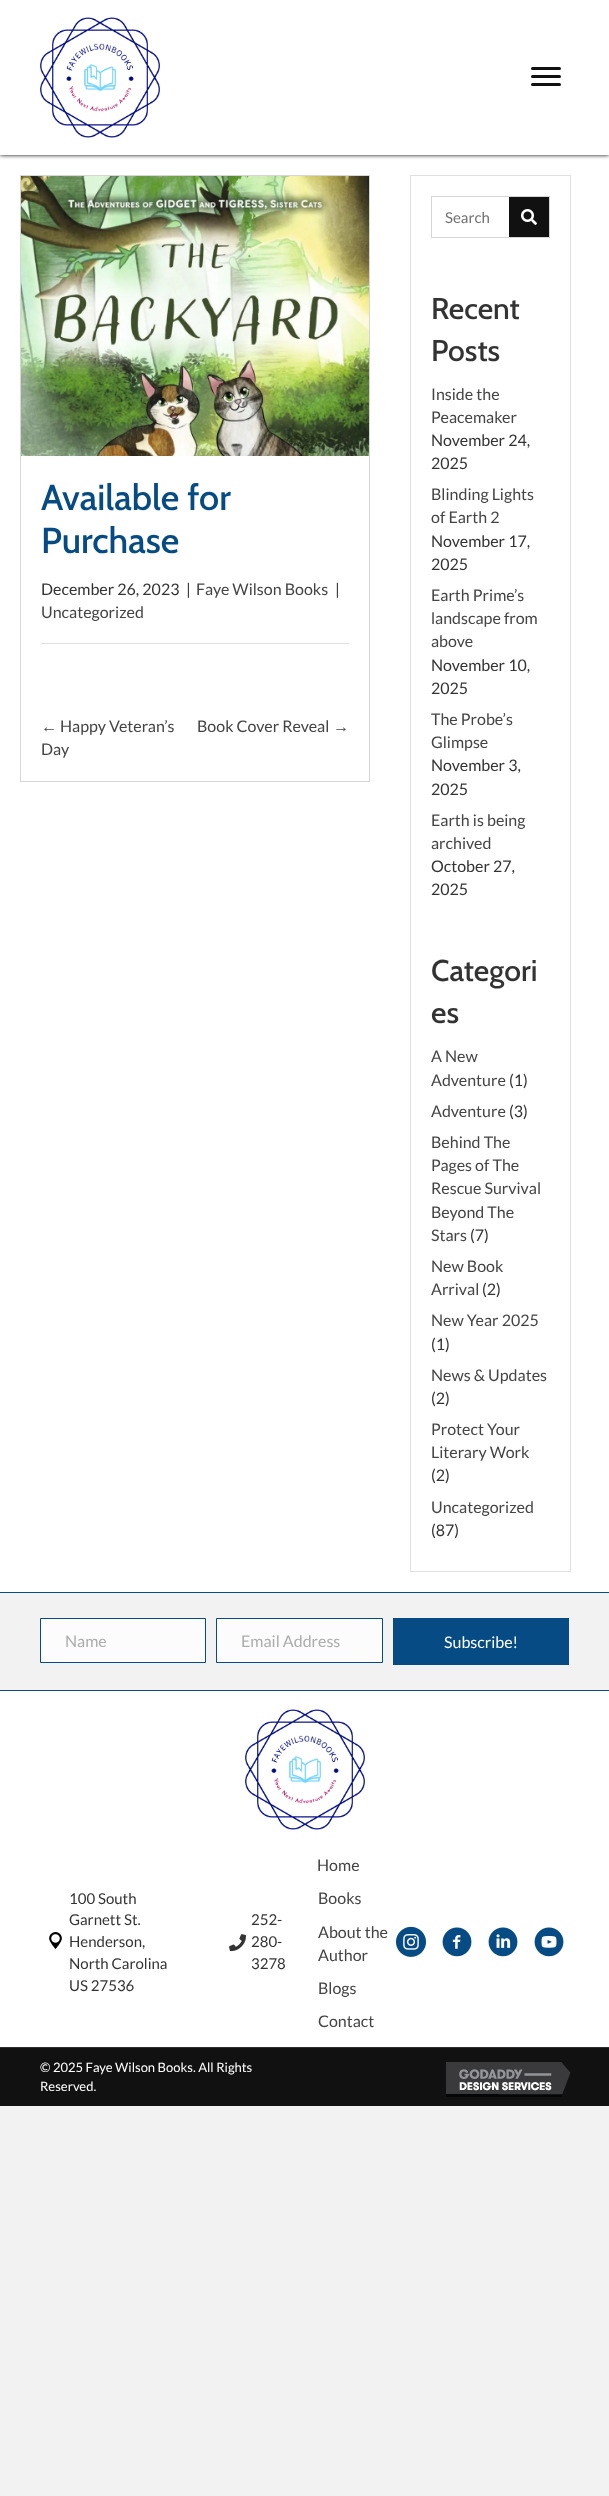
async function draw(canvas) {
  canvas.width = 609;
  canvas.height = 2496;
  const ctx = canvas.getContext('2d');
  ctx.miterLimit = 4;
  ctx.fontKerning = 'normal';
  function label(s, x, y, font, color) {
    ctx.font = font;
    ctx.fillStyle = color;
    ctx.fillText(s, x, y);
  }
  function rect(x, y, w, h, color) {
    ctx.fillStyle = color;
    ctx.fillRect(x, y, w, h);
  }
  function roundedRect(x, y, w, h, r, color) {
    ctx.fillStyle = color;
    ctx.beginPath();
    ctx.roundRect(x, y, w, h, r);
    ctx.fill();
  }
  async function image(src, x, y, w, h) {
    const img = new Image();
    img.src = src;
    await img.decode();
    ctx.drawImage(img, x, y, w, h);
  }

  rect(0, 0, 609, 2496, '#f2f2f2');
  rect(0, 155, 609, 1437, '#fff');
  ctx.fillStyle = '#000';
  ctx.filter = 'blur(2px)';
  ctx.beginPath();
  ctx.rect(0, 0, 609, 155);
  ctx.fill();
  ctx.filter = 'none';
  rect(0, 0, 609, 155, '#fff');
  await image('assets/img1.png', 40, 17, 120, 121);
  roundedRect(531, 75, 30, 3, 1.5, '#111');
  roundedRect(531, 67, 30, 3, 1.5, '#111');
  roundedRect(531, 83, 30, 3, 1.5, '#111');
  ctx.strokeStyle = '#d6d6d6';
  ctx.strokeRect(20.5, 175.5, 349, 606);
  await image('assets/img2.png', 21, 176, 348, 280);
  label('Available for', 41, 510, '500 36px Cabin', '#074b84');
  label('Purchase', 41, 553, '500 36px Cabin', '#074b84');
  label('December 26, 2023', 41, 595, '16px Lato', '#333');
  label('|', 186, 595, '16px Lato', '#333');
  label('Faye Wilson Books', 196, 595, '16px Lato', '#444');
  label('|', 335, 595, '16px Lato', '#333');
  label('Uncategorized', 41, 618, '16px Lato', '#444');
  rect(41, 643, 308, 1, '#e0e0e0');
  label('←', 41, 732, '16px Liberation Sans', '#444');
  label('Happy Veteran’s', 60, 732, '16px Lato', '#444');
  label('Day', 41, 755, '16px Lato', '#444');
  label('Book Cover Reveal', 197, 732, '16px Lato', '#444');
  label('→', 333, 732, '16px Liberation Sans', '#444');
  ctx.strokeStyle = '#e0e0e0';
  ctx.strokeRect(410.5, 175.5, 160, 1396);
  ctx.strokeStyle = '#d6d6d6';
  ctx.strokeRect(431.5, 196.5, 118, 41);
  label('Search', 445, 223, '15px Lato', '#707070');
  rect(509, 197, 40, 40, '#111');
  await image('assets/img3.png', 521, 209, 16, 16);
  label('Recent', 431, 319, '500 30px Cabin', '#333');
  label('Posts', 431, 361, '500 30px Cabin', '#333');
  label('Inside the', 431, 400, '16px Lato', '#444');
  label('Peacemaker', 431, 423, '16px Lato', '#444');
  label('November 24,', 431, 446, '16px Lato', '#333');
  label('2025', 431, 469, '16px Lato', '#333');
  label('Blinding Lights', 431, 500, '16px Lato', '#444');
  label('of Earth 2', 431, 523, '16px Lato', '#444');
  label('November 17,', 431, 547, '16px Lato', '#333');
  label('2025', 431, 570, '16px Lato', '#333');
  label('Earth Prime’s', 431, 601, '16px Lato', '#444');
  label('landscape from', 431, 624, '16px Lato', '#444');
  label('above', 431, 647, '16px Lato', '#444');
  label('November 10,', 431, 671, '16px Lato', '#333');
  label('2025', 431, 694, '16px Lato', '#333');
  label('The Probe’s', 431, 725, '16px Lato', '#444');
  label('Glimpse', 431, 748, '16px Lato', '#444');
  label('November 3,', 431, 771, '16px Lato', '#333');
  label('2025', 431, 795, '16px Lato', '#333');
  label('Earth is being', 431, 826, '16px Lato', '#444');
  label('archived', 431, 849, '16px Lato', '#444');
  label('October 27,', 431, 872, '16px Lato', '#333');
  label('2025', 431, 895, '16px Lato', '#333');
  label('Categori', 431, 981, '500 30px Cabin', '#333');
  label('es', 431, 1023, '500 30px Cabin', '#333');
  label('A New', 431, 1062, '16px Lato', '#444');
  label('Adventure', 431, 1086, '16px Lato', '#444');
  label('(1)', 509, 1086, '16px Lato', '#333');
  label('Adventure', 431, 1117, '16px Lato', '#444');
  label('(3)', 509, 1117, '16px Lato', '#333');
  label('Behind The', 431, 1148, '16px Lato', '#444');
  label('Pages of The', 431, 1171, '16px Lato', '#444');
  label('Rescue Survival', 431, 1194, '16px Lato', '#444');
  label('Beyond The', 431, 1218, '16px Lato', '#444');
  label('Stars', 431, 1241, '16px Lato', '#444');
  label('(7)', 470, 1241, '16px Lato', '#333');
  label('New Book', 431, 1272, '16px Lato', '#444');
  label('Arrival', 431, 1295, '16px Lato', '#444');
  label('(2)', 482, 1295, '16px Lato', '#333');
  label('New Year 2025', 431, 1326, '16px Lato', '#444');
  label('(1)', 431, 1350, '16px Lato', '#333');
  label('News & Updates', 431, 1381, '16px Lato', '#444');
  label('(2)', 431, 1404, '16px Lato', '#333');
  label('Protect Your', 431, 1435, '16px Lato', '#444');
  label('Literary Work', 431, 1458, '16px Lato', '#444');
  label('(2)', 431, 1481, '16px Lato', '#333');
  label('Uncategorized', 431, 1513, '16px Lato', '#444');
  label('(87)', 431, 1536, '16px Lato', '#333');
  rect(0, 1592, 609, 1, '#074b84');
  ctx.fillStyle = '#fcfcfc';
  ctx.beginPath();
  ctx.rect(40.5, 1618.5, 165, 44);
  ctx.fill();
  ctx.strokeStyle = '#074b84';
  ctx.stroke();
  label('Name', 65, 1647, '16px Lato', '#acacac');
  ctx.fillStyle = '#fcfcfc';
  ctx.beginPath();
  ctx.rect(216.5, 1618.5, 166, 44);
  ctx.fill();
  ctx.stroke();
  label('Email Address', 241, 1647, '16px Lato', '#acacac');
  rect(393, 1618, 176, 47, '#074b84');
  label('Subscribe!', 444, 1648, '16px Lato', '#fff');
  rect(0, 1691, 609, 356, '#fff');
  rect(0, 1690, 609, 1, '#074b84');
  await image('assets/img4.png', 245, 1709, 120, 121);
  await image('assets/img5.png', 49, 1932, 13, 17);
  label('100 South', 69, 1904, '15px Lato', '#333');
  label('Garnett St.', 69, 1925, '15px Lato', '#333');
  label('Henderson,', 69, 1947, '15px Lato', '#333');
  label('North Carolina', 69, 1969, '15px Lato', '#333');
  label('US 27536', 69, 1991, '15px Lato', '#333');
  await image('assets/img6.png', 229, 1934, 17, 18);
  label('252-', 251, 1925, '15px Lato', '#333');
  label('280-', 251, 1947, '15px Lato', '#333');
  label('3278', 251, 1969, '15px Lato', '#333');
  label('Home', 317, 1871, '16px Lato', '#444');
  label('Books', 318, 1904, '16px Lato', '#444');
  label('About the', 318, 1938, '16px Lato', '#444');
  label('Author', 318, 1961, '16px Lato', '#444');
  label('Blogs', 318, 1994, '16px Lato', '#444');
  label('Contact', 318, 2027, '16px Lato', '#444');
  await image('assets/img7.png', 396, 1926, 30, 31);
  await image('assets/img8.png', 442, 1927, 30, 30);
  await image('assets/img9.png', 488, 1927, 30, 30);
  await image('assets/img10.png', 534, 1927, 30, 30);
  rect(0, 2048, 609, 58, '#111');
  rect(0, 2047, 609, 1, '#2d2d2d');
  label('© 2025 Faye Wilson Books. All Rights', 40, 2072, '13px Lato', '#fff');
  label('Reserved.', 40, 2091, '13px Lato', '#fff');
  await image('assets/img11.png', 446, 2062, 125, 35);
}

draw(document.querySelector('canvas'));
